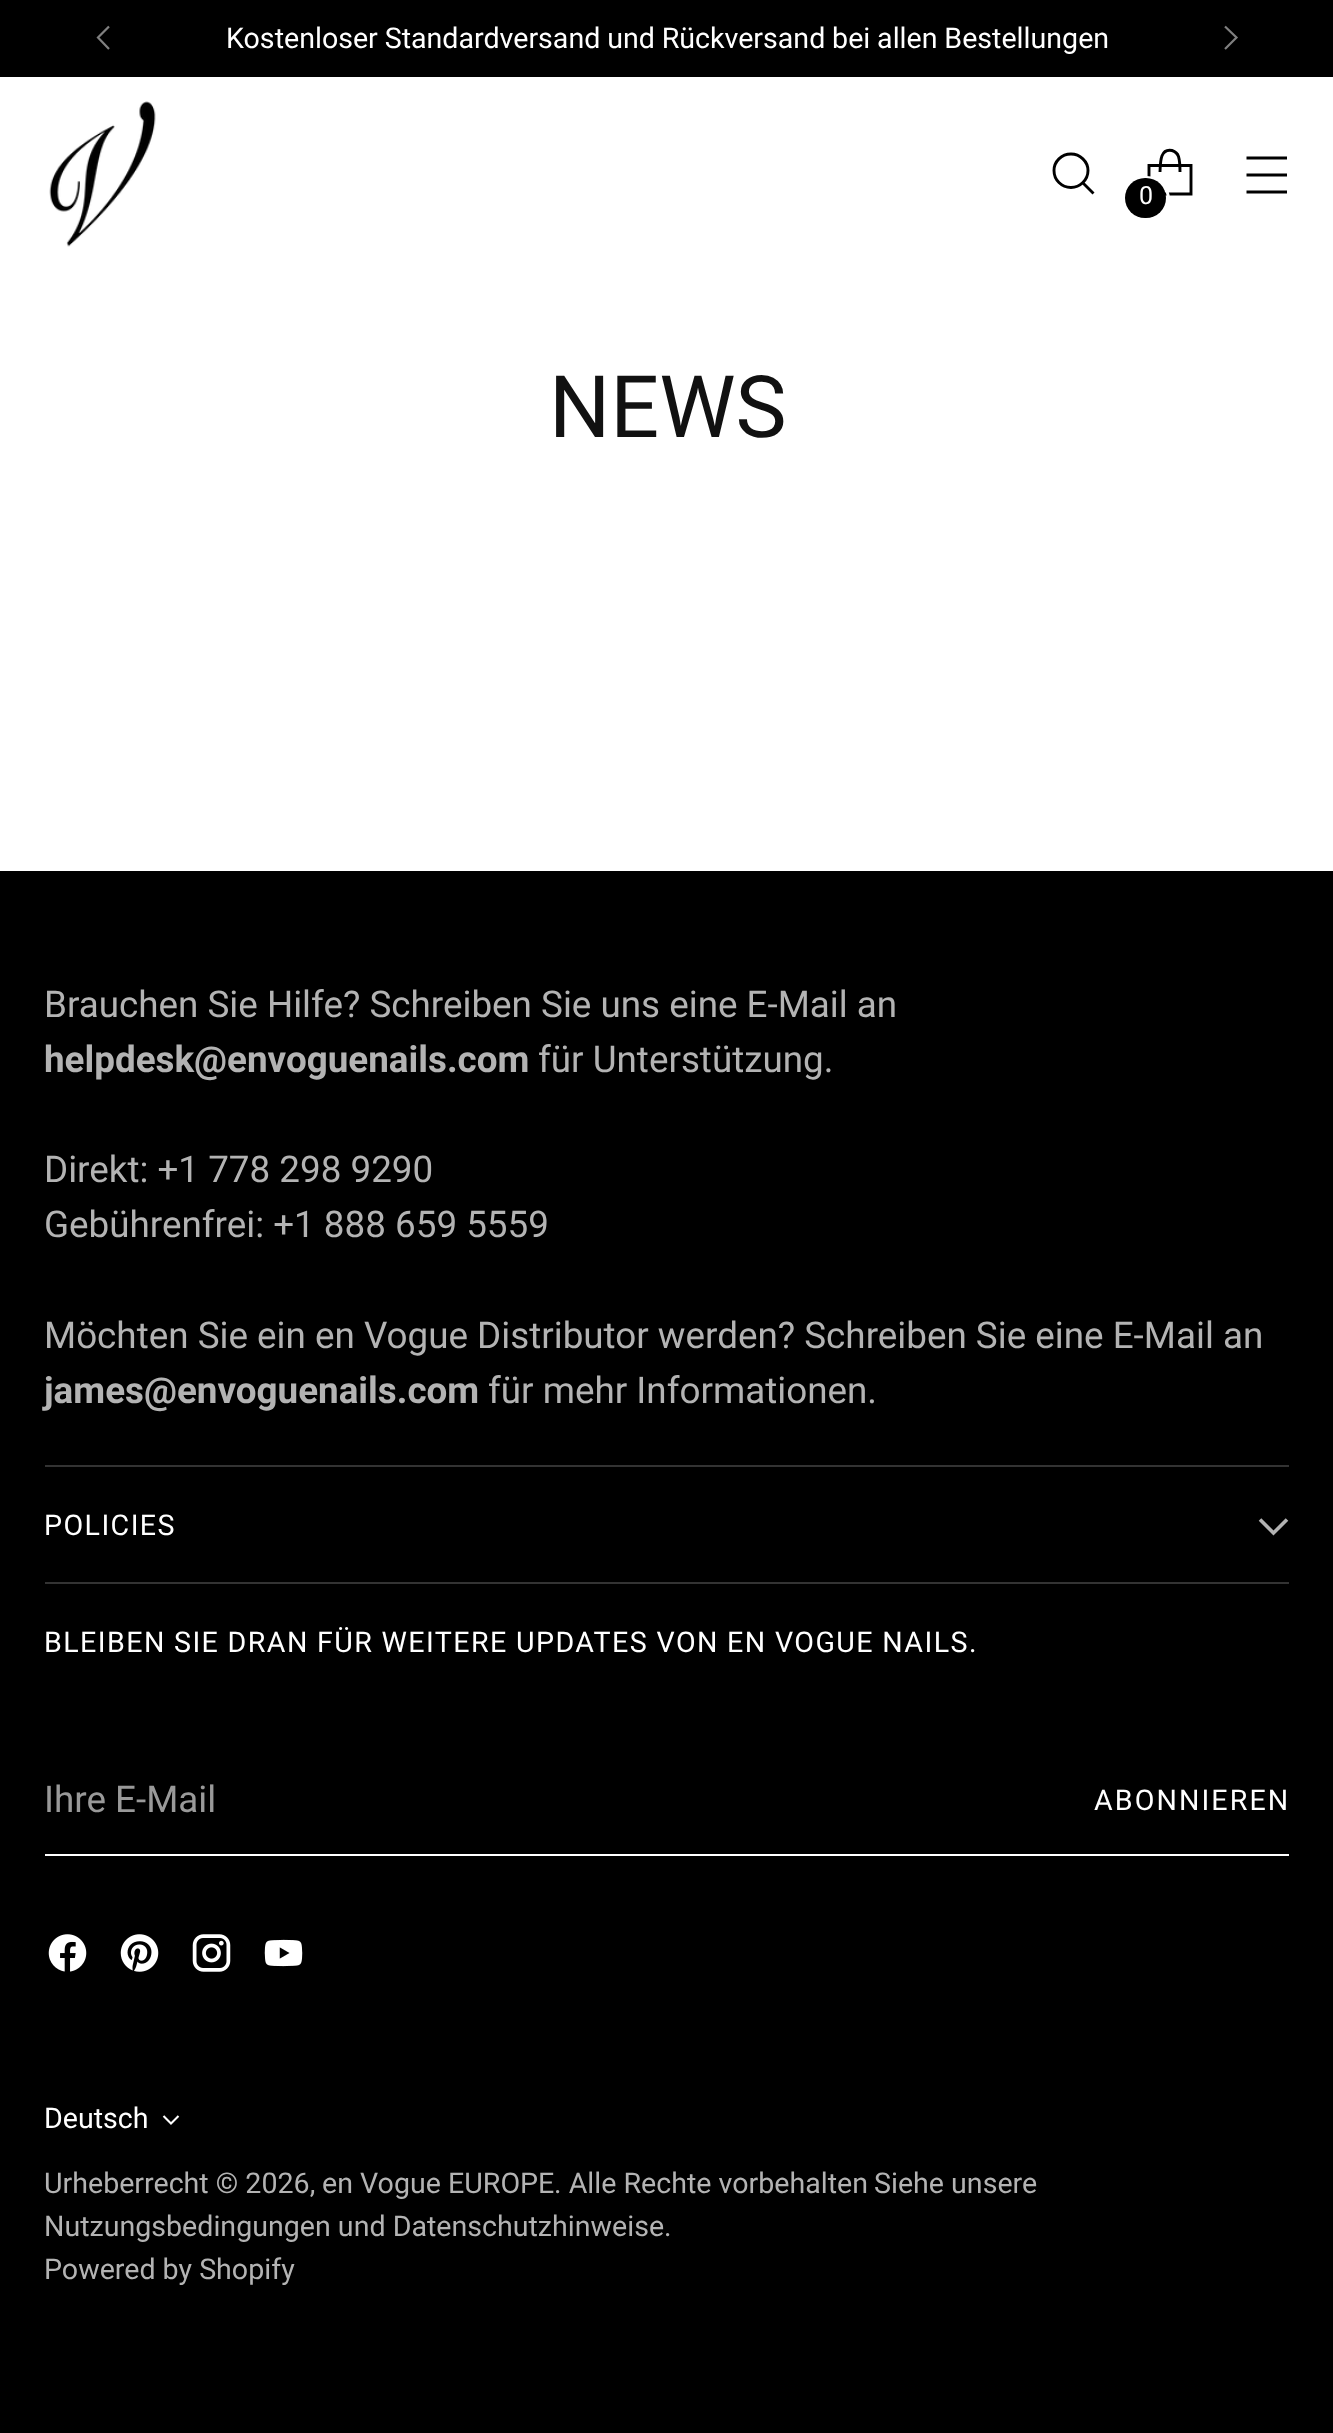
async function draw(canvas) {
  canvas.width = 1333;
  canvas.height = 2433;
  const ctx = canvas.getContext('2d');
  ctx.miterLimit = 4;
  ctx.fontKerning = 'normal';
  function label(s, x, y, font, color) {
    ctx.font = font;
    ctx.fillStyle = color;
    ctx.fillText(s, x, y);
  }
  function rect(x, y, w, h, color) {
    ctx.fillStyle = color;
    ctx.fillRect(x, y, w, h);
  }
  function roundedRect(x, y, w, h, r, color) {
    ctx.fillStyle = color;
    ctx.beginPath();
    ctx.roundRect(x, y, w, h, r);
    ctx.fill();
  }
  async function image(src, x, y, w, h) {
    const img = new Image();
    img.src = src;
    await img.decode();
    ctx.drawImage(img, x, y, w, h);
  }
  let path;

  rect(0, 0, 1333, 2433, '#fff');
  rect(0, 0, 1333, 77, '#000');
  path = new Path2D('M109 26.5L98 37.5L109 49');
  ctx.strokeStyle = '#808080';
  ctx.lineWidth = 2.2;
  ctx.stroke(path);
  path = new Path2D('M1225 49L1236.5 37.5L1225 26.5');
  ctx.stroke(path);
  ctx.wordSpacing = '-0.25px';
  label('Kostenloser Standardversand und Rückversand bei allen Bestellungen', 226, 48, '28.6px Roboto', '#fff');
  await image('assets/img1.png', 49, 101, 107, 146);
  path = new Path2D('M1071 187.5C1080 187.5 1088 180 1088 170.5C1088 161.5 1080 154 1071 154C1061.5 154 1054 161.5 1054 170.5C1054 180 1061.5 187.5 1071 187.5Z');
  ctx.strokeStyle = '#000';
  ctx.lineWidth = 2.9;
  ctx.lineCap = 'round';
  ctx.stroke(path);
  path = new Path2D('M1083 183L1093.5 193.5');
  ctx.lineCap = 'butt';
  ctx.stroke(path);
  path = new Path2D('M1180 172C1180 167 1180 161.5 1178.5 156.5C1177.5 153.5 1175 151.5 1172 150.5C1159.5 148 1160.5 164 1160 172');
  ctx.lineJoin = 'bevel';
  ctx.stroke(path);
  path = new Path2D('M1191 194V165.5H1149V194Z');
  ctx.lineJoin = 'miter';
  ctx.stroke(path);
  ctx.beginPath();
  ctx.arc(1146.5, 199.5, 22, 0, 2 * Math.PI);
  ctx.strokeStyle = '#fff';
  ctx.lineWidth = 3;
  ctx.stroke();
  roundedRect(1125, 178, 41, 40, 20, '#000');
  ctx.wordSpacing = '0px';
  label('0', 1139, 204, '25px Roboto', '#fff');
  path = new Path2D('M1246.5 175H1287M1246.5 158H1287M1246.5 192H1287');
  ctx.strokeStyle = '#000';
  ctx.lineWidth = 2.9;
  ctx.stroke(path);
  label('NEWS', 549, 437, '86px Roboto', '#111');
  rect(0, 871, 1333, 1562, '#000');
  rect(45, 1465, 1244, 2, '#333');
  label('Brauchen Sie Hilfe? Schreiben Sie uns eine E-Mail an', 44, 1017, '36.8px Roboto', '#b3b3b3');
  label('helpdesk@envoguenails.com', 44, 1072, 'bold 36.8px Roboto', '#b3b3b3');
  label('für Unterstützung.', 538, 1072, '36.8px Roboto', '#b3b3b3');
  label('Direkt: +1 778 298 9290', 44, 1182, '36.8px Roboto', '#b3b3b3');
  label('Gebührenfrei: +1 888 659 5559', 44, 1237, '36.8px Roboto', '#b3b3b3');
  label('Möchten Sie ein en Vogue Distributor werden? Schreiben Sie eine E-Mail an', 44, 1348, '36.8px Roboto', '#b3b3b3');
  label('james@envoguenails.com', 44, 1403, 'bold 36.8px Roboto', '#b3b3b3');
  label('für mehr Informationen.', 488, 1403, '36.8px Roboto', '#b3b3b3');
  rect(45, 1582, 1244, 2, '#333');
  ctx.letterSpacing = '1.43px';
  label('POLICIES', 44, 1535, '28.6px Roboto', '#fff');
  path = new Path2D('M1260 1519.5L1273.5 1533L1287 1519.5');
  ctx.strokeStyle = '#b3b3b3';
  ctx.lineWidth = 3.6;
  ctx.stroke(path);
  ctx.wordSpacing = '-0.25px';
  label('BLEIBEN SIE DRAN FÜR WEITERE UPDATES VON EN VOGUE NAILS.', 44, 1652, '28.6px Roboto', '#fff');
  rect(45, 1854, 1244, 2, '#fff');
  ctx.letterSpacing = '0px';
  ctx.wordSpacing = '0px';
  label('Ihre E-Mail', 44, 1812, '36.8px Roboto', '#999');
  ctx.letterSpacing = '2.1px';
  label('ABONNIEREN', 1094, 1810, '28.6px Roboto', '#fff');
  await image('assets/img2.png', 48, 1934, 39, 38);
  await image('assets/img3.png', 120, 1934, 39, 38);
  await image('assets/img4.png', 192, 1934, 39, 38);
  await image('assets/img5.png', 264, 1939, 39, 28);
  ctx.letterSpacing = '0px';
  label('Deutsch', 44, 2128, '28.6px Roboto', '#fff');
  path = new Path2D('M163.5 2116L171 2123.5L178.5 2116');
  ctx.strokeStyle = '#fff';
  ctx.lineWidth = 2.1;
  ctx.stroke(path);
  label('Urheberrecht © 2026,', 44, 2193, '28.6px Roboto', '#b3b3b3');
  label('en Vogue EUROPE', 322, 2193, '28.6px Roboto', '#b3b3b3');
  label('. Alle Rechte vorbehalten', 554, 2193, '28.6px Roboto', '#b3b3b3');
  label('Siehe unsere', 874, 2193, '28.6px Roboto', '#b3b3b3');
  label('Nutzungsbedingungen und Datenschutzhinweise.', 44, 2236, '28.6px Roboto', '#b3b3b3');
  label('Powered by Shopify', 44, 2279, '28.6px Roboto', '#b3b3b3');
}

draw(document.querySelector('canvas'));
